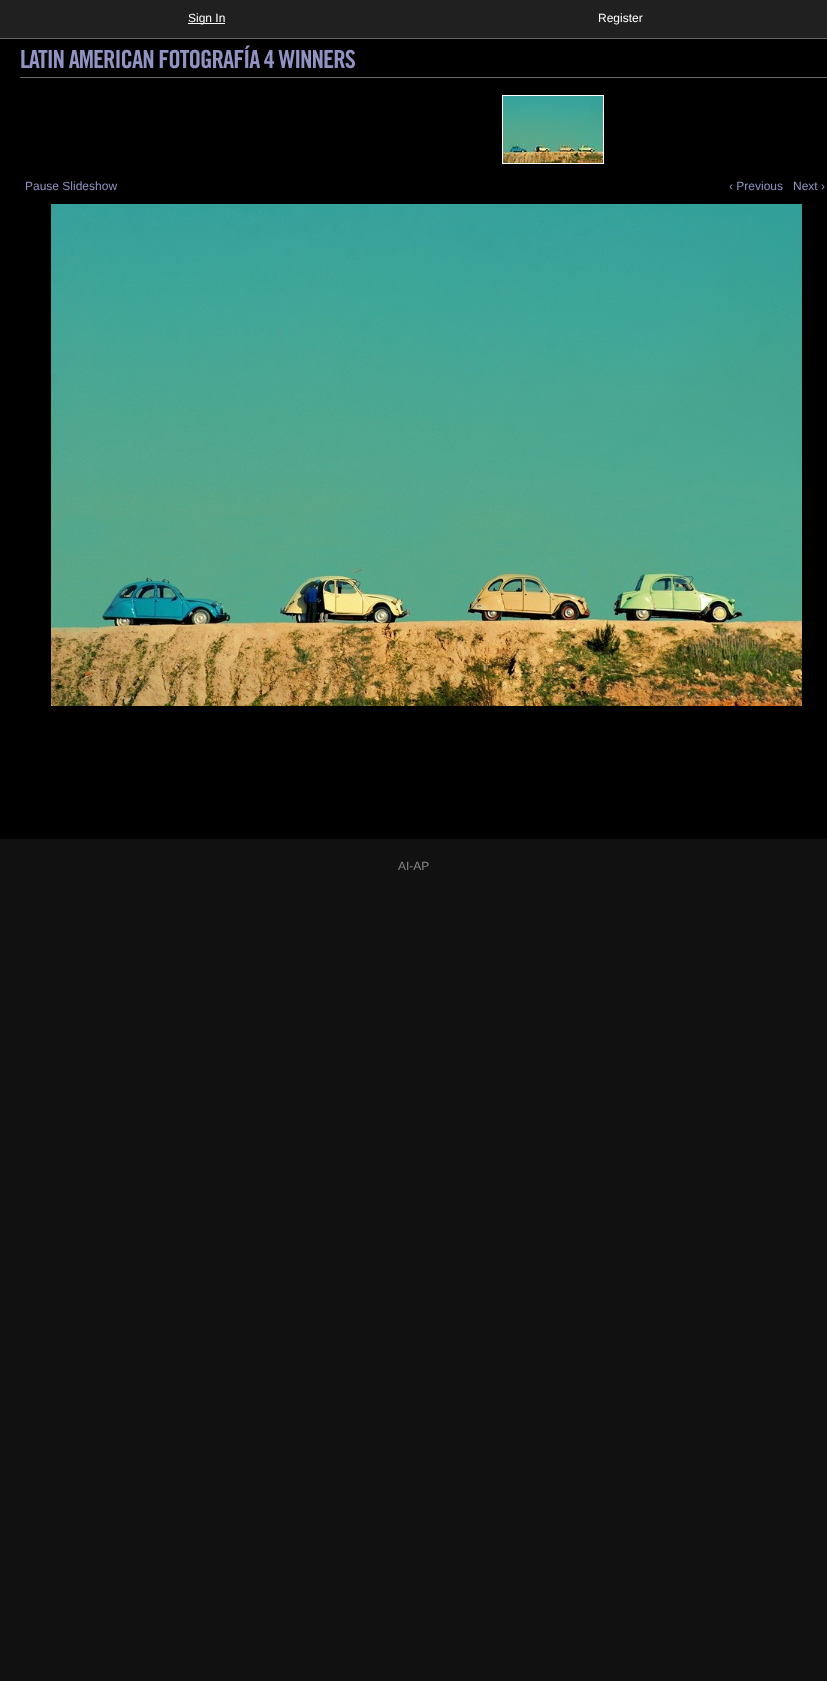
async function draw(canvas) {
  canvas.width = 827;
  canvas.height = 1681;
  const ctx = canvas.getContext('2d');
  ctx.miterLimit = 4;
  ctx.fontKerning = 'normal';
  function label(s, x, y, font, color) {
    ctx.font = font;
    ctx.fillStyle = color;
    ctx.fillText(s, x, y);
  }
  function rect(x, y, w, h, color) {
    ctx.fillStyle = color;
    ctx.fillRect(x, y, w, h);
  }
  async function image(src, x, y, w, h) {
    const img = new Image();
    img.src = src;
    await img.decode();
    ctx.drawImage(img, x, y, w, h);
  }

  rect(0, 0, 827, 1681, '#111');
  rect(0, 0, 827, 38, '#202020');
  rect(188, 23, 37, 1, '#fff');
  label('Sign In', 188, 22, '12px Liberation Sans', '#fff');
  label('Register', 598, 22, '12px Liberation Sans', '#fff');
  rect(0, 38, 827, 1, '#666');
  rect(0, 39, 827, 800, '#000');
  rect(20, 77, 807, 1, '#666');
  ctx.letterSpacing = '-1px';
  label('LATIN AMERICAN FOTOGRAFÍA 4 WINNERS', 20, 68, 'bold 25px "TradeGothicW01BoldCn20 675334"', '#9194c3');
  rect(502, 95, 102, 69, '#fff');
  await image('assets/img1.png', 503, 96, 100, 67);
  ctx.letterSpacing = '0px';
  label('Pause Slideshow', 25, 190, '12px Liberation Sans', '#9194c3');
  label('‹ Previous', 729, 190, '12px Liberation Sans', '#9194c3');
  label('Next ›', 793, 190, '12px Liberation Sans', '#9194c3');
  await image('assets/img2.png', 51, 204, 751, 502);
  label('AI-AP', 398, 870, '12px Liberation Sans', '#888');
}

draw(document.querySelector('canvas'));
